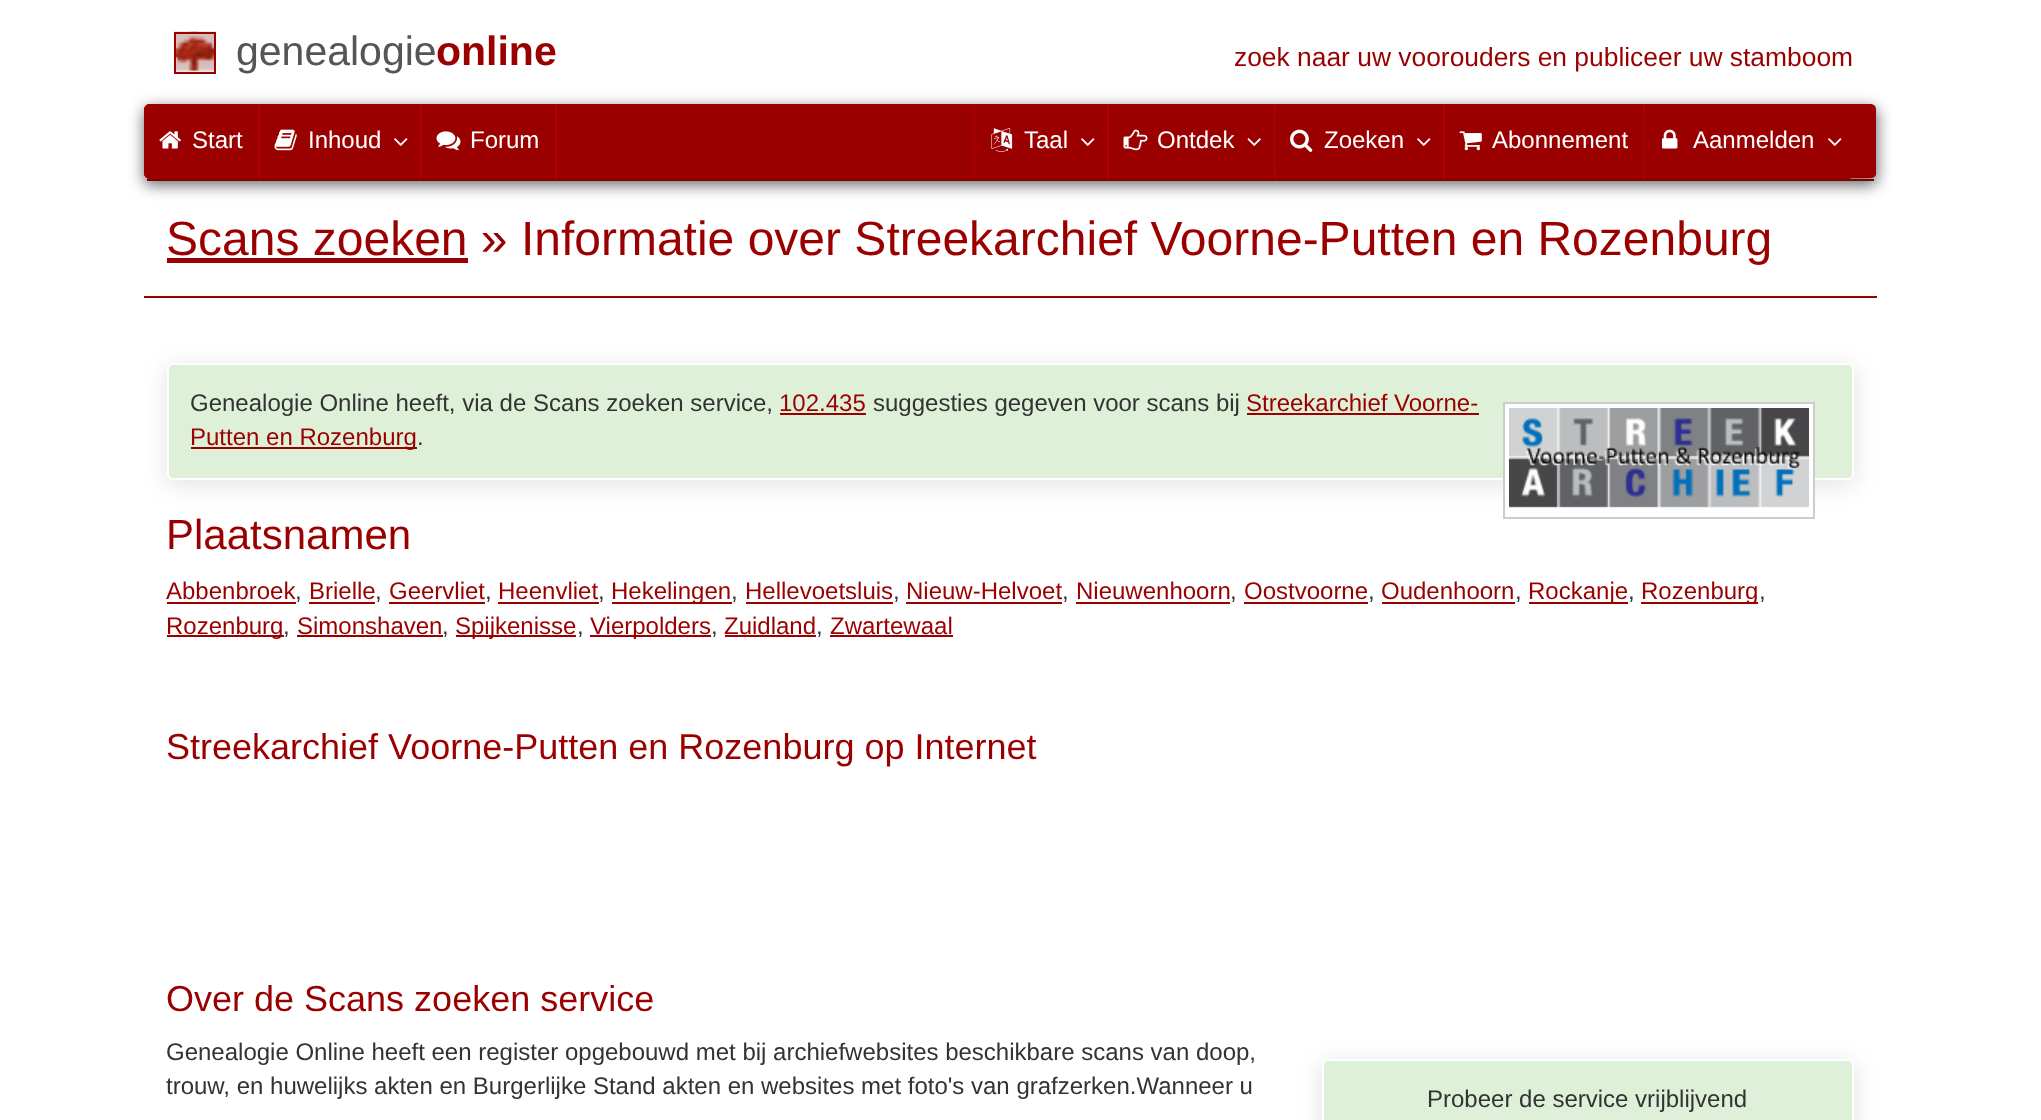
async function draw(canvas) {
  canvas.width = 2041;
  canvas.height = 1120;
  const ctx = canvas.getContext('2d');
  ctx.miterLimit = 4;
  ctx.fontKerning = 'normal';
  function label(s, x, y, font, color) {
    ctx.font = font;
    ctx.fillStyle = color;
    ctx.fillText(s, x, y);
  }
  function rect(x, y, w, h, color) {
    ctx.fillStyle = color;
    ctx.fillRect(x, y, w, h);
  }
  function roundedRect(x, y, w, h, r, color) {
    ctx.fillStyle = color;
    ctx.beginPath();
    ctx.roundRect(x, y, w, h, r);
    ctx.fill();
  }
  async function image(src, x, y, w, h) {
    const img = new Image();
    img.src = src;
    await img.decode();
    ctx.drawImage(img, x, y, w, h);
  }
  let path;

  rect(0, 0, 2041, 1120, '#fff');
  await image('assets/img1.png', 174, 31, 42, 41);
  ctx.strokeStyle = '#9a0000';
  ctx.lineWidth = 2;
  ctx.strokeRect(175, 33, 40, 40);
  label('genealogie', 236, 65, '41px Liberation Sans', '#555');
  label('online', 436, 65, 'bold 41px Liberation Sans', '#9a0000');
  label('zoek naar uw voorouders en publiceer uw stamboom', 1234, 66, '26.4px Liberation Sans', '#9a0000');
  ctx.fillStyle = '#323232ba';
  ctx.filter = 'blur(7.5px)';
  ctx.beginPath();
  ctx.roundRect(144, 108, 1733, 77, 6);
  ctx.fill();
  ctx.filter = 'none';
  ctx.fillStyle = '#9a0000';
  path = new Path2D('M150 104H1870C1874 104 1876 106 1876 110V174C1876 176 1874 178 1870 178H150C147 178 144 176 144 174V110C144 106 147 104 150 104Z');
  ctx.fill(path);
  rect(147, 179, 1727, 2, '#810000');
  roundedRect(144, 104, 1710, 75, 6, '#9a0000');
  roundedRect(144, 104, 114, 75, 6, '#9a0000');
  await image('assets/img2.png', 159, 131, 22, 18);
  label('Start', 192, 148, '24px Liberation Sans', '#fff');
  rect(258, 104, 2, 75, '#b30000');
  await image('assets/img3.png', 274, 129, 23, 22);
  label('Inhoud', 308, 148, '24px Liberation Sans', '#fff');
  await image('assets/img4.png', 394, 138, 14, 8);
  rect(420, 104, 2, 75, '#b30000');
  await image('assets/img5.png', 436, 131, 25, 20);
  label('Forum', 470, 148, '24px Liberation Sans', '#fff');
  rect(555, 104, 2, 75, '#b30000');
  rect(974, 104, 1, 75, '#b30000');
  await image('assets/img6.png', 991, 128, 22, 24);
  label('Taal', 1024, 148, '24px Liberation Sans', '#fff');
  await image('assets/img4.png', 1081, 138, 14, 8);
  rect(1107, 104, 2, 75, '#b30000');
  await image('assets/img7.png', 1123, 129, 25, 22);
  label('Ontdek', 1157, 148, '24px Liberation Sans', '#fff');
  await image('assets/img8.png', 1247, 138, 14, 8);
  rect(1274, 104, 2, 75, '#b30000');
  roundedRect(1275, 104, 168, 75, 6, '#9a0000');
  await image('assets/img9.png', 1290, 129, 23, 23);
  label('Zoeken', 1324, 148, '24px Liberation Sans', '#fff');
  await image('assets/img4.png', 1417, 138, 14, 8);
  rect(1443, 104, 2, 75, '#b30000');
  await image('assets/img10.png', 1459, 131, 23, 20);
  label('Abonnement', 1492, 148, '24px Liberation Sans', '#fff');
  rect(1643, 104, 2, 75, '#b30000');
  roundedRect(1644, 104, 210, 75, 6, '#9a0000');
  await image('assets/img11.png', 1662, 129, 16, 20);
  label('Aanmelden', 1693, 148, '24px Liberation Sans', '#fff');
  await image('assets/img4.png', 1828, 138, 14, 8);
  rect(144, 296, 1733, 2, '#9a0000');
  rect(167, 258, 301, 5, '#9a0000');
  label('Scans zoeken » Informatie over Streekarchief Voorne-Putten en Rozenburg', 166, 255, '48px Liberation Sans', '#9a0000');
  ctx.fillStyle = '#0000001a';
  ctx.filter = 'blur(11px)';
  ctx.beginPath();
  ctx.roundRect(165, 366, 1691, 120, 8);
  ctx.fill();
  ctx.filter = 'none';
  ctx.fillStyle = '#dff0d8';
  ctx.beginPath();
  ctx.roundRect(168, 364, 1685, 115, 5);
  ctx.fill();
  ctx.strokeStyle = '#fff';
  ctx.stroke();
  label('Genealogie Online heeft, via de Scans zoeken service,', 190, 411, '24px Liberation Sans', '#333');
  label('102.435', 779, 411, '24px Liberation Sans', '#9a0000');
  rect(780, 413, 86, 2, '#9a0000');
  label('suggesties gegeven voor scans bij', 873, 411, '24px Liberation Sans', '#333');
  label('Streekarchief Voorne-', 1246, 411, '24px Liberation Sans', '#9a0000');
  rect(1247, 413, 232, 2, '#9a0000');
  rect(1505, 404, 308, 96, '#fff');
  ctx.strokeStyle = '#ccc';
  ctx.strokeRect(1504, 403, 310, 115);
  await image('assets/img12.png', 1509, 408, 300, 100);
  rect(191, 447, 226, 2, '#9a0000');
  label('Putten en Rozenburg', 190, 445, '24px Liberation Sans', '#9a0000');
  label('.', 417, 445, '24px Liberation Sans', '#333');
  label('Plaatsnamen', 166, 549, '42px Liberation Sans', '#9a0000');
  label('Abbenbroek', 166, 599, '24px Liberation Sans', '#9a0000');
  rect(167, 602, 129, 2, '#9a0000');
  label(',', 295, 599, '24px Liberation Sans', '#333');
  label('Brielle', 309, 599, '24px Liberation Sans', '#9a0000');
  rect(309, 602, 66, 2, '#9a0000');
  label(',', 375, 599, '24px Liberation Sans', '#333');
  label('Geervliet', 389, 599, '24px Liberation Sans', '#9a0000');
  rect(389, 602, 96, 2, '#9a0000');
  label(',', 485, 599, '24px Liberation Sans', '#333');
  label('Heenvliet', 498, 599, '24px Liberation Sans', '#9a0000');
  rect(498, 602, 101, 2, '#9a0000');
  label(',', 598, 599, '24px Liberation Sans', '#333');
  rect(612, 602, 120, 2, '#9a0000');
  label('Hekelingen', 611, 599, '24px Liberation Sans', '#9a0000');
  label(',', 731, 599, '24px Liberation Sans', '#333');
  label('Hellevoetsluis', 745, 599, '24px Liberation Sans', '#9a0000');
  rect(746, 602, 147, 2, '#9a0000');
  label(',', 893, 599, '24px Liberation Sans', '#333');
  label('Nieuw-Helvoet', 906, 599, '24px Liberation Sans', '#9a0000');
  rect(906, 602, 156, 2, '#9a0000');
  label(',', 1062, 599, '24px Liberation Sans', '#333');
  label('Nieuwenhoorn', 1076, 599, '24px Liberation Sans', '#9a0000');
  rect(1076, 602, 154, 2, '#9a0000');
  label(',', 1230, 599, '24px Liberation Sans', '#333');
  label('Oostvoorne', 1244, 599, '24px Liberation Sans', '#9a0000');
  rect(1244, 602, 124, 2, '#9a0000');
  label(',', 1368, 599, '24px Liberation Sans', '#333');
  label('Oudenhoorn', 1381, 599, '24px Liberation Sans', '#9a0000');
  rect(1382, 602, 133, 2, '#9a0000');
  label(',', 1515, 599, '24px Liberation Sans', '#333');
  rect(1529, 602, 99, 2, '#9a0000');
  label('Rockanje', 1528, 599, '24px Liberation Sans', '#9a0000');
  label(',', 1628, 599, '24px Liberation Sans', '#333');
  rect(1641, 602, 117, 2, '#9a0000');
  label('Rozenburg', 1641, 599, '24px Liberation Sans', '#9a0000');
  label(',', 1759, 599, '24px Liberation Sans', '#333');
  rect(167, 635, 117, 2, '#9a0000');
  label('Rozenburg', 166, 634, '24px Liberation Sans', '#9a0000');
  label(',', 283, 634, '24px Liberation Sans', '#333');
  label('Simonshaven', 297, 634, '24px Liberation Sans', '#9a0000');
  rect(297, 635, 146, 2, '#9a0000');
  label(',', 442, 634, '24px Liberation Sans', '#333');
  rect(456, 635, 120, 2, '#9a0000');
  label('Spijkenisse', 455, 634, '24px Liberation Sans', '#9a0000');
  label(',', 577, 634, '24px Liberation Sans', '#333');
  rect(590, 635, 121, 2, '#9a0000');
  label('Vierpolders', 590, 634, '24px Liberation Sans', '#9a0000');
  label(',', 711, 634, '24px Liberation Sans', '#333');
  label('Zuidland', 724, 634, '24px Liberation Sans', '#9a0000');
  rect(725, 635, 91, 2, '#9a0000');
  label(',', 816, 634, '24px Liberation Sans', '#333');
  label('Zwartewaal', 830, 634, '24px Liberation Sans', '#9a0000');
  rect(830, 635, 123, 2, '#9a0000');
  label('Streekarchief Voorne-Putten en Rozenburg op Internet', 166, 759, '36px Liberation Sans', '#9a0000');
  label('Over de Scans zoeken service', 166, 1011, '36px Liberation Sans', '#9a0000');
  label('Genealogie Online heeft een register opgebouwd met bij archiefwebsites beschikbare scans van doop,', 166, 1060, '24px Liberation Sans', '#333');
  label('trouw, en huwelijks akten en Burgerlijke Stand akten en websites met foto\'s van grafzerken.Wanneer u', 166, 1094, '24px Liberation Sans', '#333');
  ctx.fillStyle = '#0000001a';
  ctx.filter = 'blur(11px)';
  ctx.beginPath();
  ctx.roundRect(1320, 1062, 536, 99, 8);
  ctx.fill();
  ctx.filter = 'none';
  ctx.fillStyle = '#dff0d8';
  ctx.beginPath();
  ctx.roundRect(1323, 1060, 530, 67, 5);
  ctx.fill();
  ctx.strokeStyle = '#fff';
  ctx.stroke();
  label('Probeer de service vrijblijvend', 1427, 1107, '24px Liberation Sans', '#333');
}

draw(document.querySelector('canvas'));
